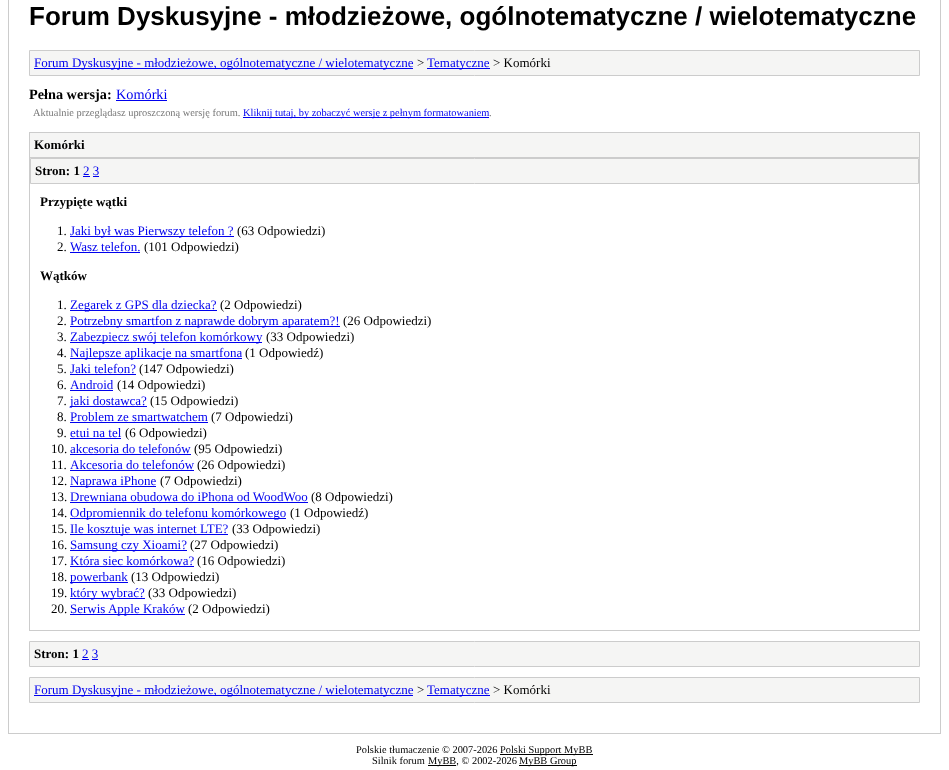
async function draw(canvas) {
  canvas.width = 949;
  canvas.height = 770;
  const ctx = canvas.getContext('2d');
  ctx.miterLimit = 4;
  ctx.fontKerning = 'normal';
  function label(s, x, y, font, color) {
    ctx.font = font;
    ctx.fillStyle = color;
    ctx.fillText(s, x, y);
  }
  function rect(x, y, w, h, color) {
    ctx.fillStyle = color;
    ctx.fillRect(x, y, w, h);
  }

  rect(0, 0, 949, 770, '#fff');
  ctx.strokeStyle = '#ccc';
  ctx.strokeRect(8.5, -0.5, 932, 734);
  label('Forum Dyskusyjne - młodzieżowe, ogólnotematyczne / wielotematyczne', 29, 25, 'bold 26px Liberation Sans', '#000');
  ctx.fillStyle = '#f5f5f4';
  ctx.beginPath();
  ctx.rect(29.5, 50.5, 890, 25);
  ctx.fill();
  ctx.stroke();
  rect(34, 68, 379, 1, '#00e');
  label('Forum Dyskusyjne - młodzieżowe, ogólnotematyczne / wielotematyczne', 34, 67, '13px Liberation Serif', '#00e');
  label('>', 417, 67, '13px Liberation Serif', '#000');
  rect(427, 68, 63, 1, '#00e');
  label('Tematyczne', 427, 67, '13px Liberation Serif', '#00e');
  label('> Komórki', 493, 67, '13px Liberation Serif', '#000');
  label('Pełna wersja:', 29, 99, 'bold 14.25px Liberation Serif', '#000');
  label('Komórki', 116, 99, '14.25px Liberation Serif', '#00e');
  rect(116, 100, 51, 1, '#00e');
  label('Aktualnie przeglądasz uproszczoną wersję forum.', 33, 116, '10.4px Liberation Serif', '#777');
  rect(243, 117, 246, 1, '#00e');
  label('Kliknij tutaj, by zobaczyć wersję z pełnym formatowaniem', 243, 116, '10.4px Liberation Serif', '#00e');
  label('.', 489, 116, '10.4px Liberation Serif', '#777');
  ctx.strokeRect(29.5, 132.5, 890, 498);
  rect(30, 133, 889, 24, '#f5f5f4');
  rect(30, 157, 889, 1, '#ccc');
  label('Komórki', 34, 149, 'bold 13px Liberation Serif', '#000');
  ctx.fillStyle = '#f5f5f4';
  ctx.beginPath();
  ctx.rect(30.5, 158.5, 888, 25);
  ctx.fill();
  ctx.stroke();
  label('Stron: 1', 35, 175, 'bold 13px Liberation Serif', '#000');
  label('2 3', 83, 175, '13px Liberation Serif', '#00e');
  rect(83, 176, 7, 1, '#00e');
  rect(93, 176, 6, 1, '#00e');
  label('Przypięte wątki', 40, 206, 'bold 13px Liberation Serif', '#000');
  label('1.', 57, 235, '13px Liberation Serif', '#000');
  rect(70, 236, 164, 1, '#00e');
  label('Jaki był was Pierwszy telefon ?', 70, 235, '13px Liberation Serif', '#00e');
  label('(63 Odpowiedzi)', 237, 235, '13px Liberation Serif', '#000');
  label('2.', 57, 251, '13px Liberation Serif', '#000');
  label('Wasz telefon.', 70, 251, '13px Liberation Serif', '#00e');
  rect(70, 252, 70, 1, '#00e');
  label('(101 Odpowiedzi)', 144, 251, '13px Liberation Serif', '#000');
  label('Wątków', 40, 280, 'bold 13px Liberation Serif', '#000');
  label('1.', 57, 309, '13px Liberation Serif', '#000');
  rect(70, 310, 147, 1, '#00e');
  label('Zegarek z GPS dla dziecka?', 70, 309, '13px Liberation Serif', '#00e');
  label('(2 Odpowiedzi)', 220, 309, '13px Liberation Serif', '#000');
  label('2.', 57, 325, '13px Liberation Serif', '#000');
  rect(70, 326, 270, 1, '#00e');
  label('Potrzebny smartfon z naprawde dobrym aparatem?!', 70, 325, '13px Liberation Serif', '#00e');
  label('(26 Odpowiedzi)', 343, 325, '13px Liberation Serif', '#000');
  label('3.', 57, 341, '13px Liberation Serif', '#000');
  rect(70, 342, 192, 1, '#00e');
  label('Zabezpiecz swój telefon komórkowy', 70, 341, '13px Liberation Serif', '#00e');
  label('(33 Odpowiedzi)', 266, 341, '13px Liberation Serif', '#000');
  label('4.', 57, 357, '13px Liberation Serif', '#000');
  rect(70, 358, 172, 1, '#00e');
  label('Najlepsze aplikacje na smartfona', 70, 357, '13px Liberation Serif', '#00e');
  label('(1 Odpowiedź)', 245, 357, '13px Liberation Serif', '#000');
  label('5.', 57, 373, '13px Liberation Serif', '#000');
  label('Jaki telefon?', 70, 373, '13px Liberation Serif', '#00e');
  rect(70, 374, 66, 1, '#00e');
  label('(147 Odpowiedzi)', 139, 373, '13px Liberation Serif', '#000');
  label('6.', 57, 389, '13px Liberation Serif', '#000');
  label('Android', 70, 389, '13px Liberation Serif', '#00e');
  rect(70, 390, 43, 1, '#00e');
  label('(14 Odpowiedzi)', 117, 389, '13px Liberation Serif', '#000');
  label('7.', 57, 405, '13px Liberation Serif', '#000');
  rect(70, 406, 77, 1, '#00e');
  label('jaki dostawca?', 70, 405, '13px Liberation Serif', '#00e');
  label('(15 Odpowiedzi)', 150, 405, '13px Liberation Serif', '#000');
  label('8.', 57, 421, '13px Liberation Serif', '#000');
  label('Problem ze smartwatchem', 70, 421, '13px Liberation Serif', '#00e');
  rect(70, 422, 138, 1, '#00e');
  label('(7 Odpowiedzi)', 211, 421, '13px Liberation Serif', '#000');
  label('9.', 57, 437, '13px Liberation Serif', '#000');
  label('etui na tel', 70, 437, '13px Liberation Serif', '#00e');
  rect(70, 438, 51, 1, '#00e');
  label('(6 Odpowiedzi)', 125, 437, '13px Liberation Serif', '#000');
  label('10.', 51, 453, '13px Liberation Serif', '#000');
  label('akcesoria do telefonów', 70, 453, '13px Liberation Serif', '#00e');
  rect(70, 454, 121, 1, '#00e');
  label('(95 Odpowiedzi)', 194, 453, '13px Liberation Serif', '#000');
  label('11.', 51, 469, '13px Liberation Serif', '#000');
  label('Akcesoria do telefonów', 70, 469, '13px Liberation Serif', '#00e');
  rect(70, 470, 124, 1, '#00e');
  label('(26 Odpowiedzi)', 197, 469, '13px Liberation Serif', '#000');
  label('12.', 51, 485, '13px Liberation Serif', '#000');
  rect(70, 486, 86, 1, '#00e');
  label('Naprawa iPhone', 70, 485, '13px Liberation Serif', '#00e');
  label('(7 Odpowiedzi)', 160, 485, '13px Liberation Serif', '#000');
  label('13.', 51, 501, '13px Liberation Serif', '#000');
  label('Drewniana obudowa do iPhona od WoodWoo', 70, 501, '13px Liberation Serif', '#00e');
  rect(70, 502, 238, 1, '#00e');
  label('(8 Odpowiedzi)', 311, 501, '13px Liberation Serif', '#000');
  label('14.', 51, 517, '13px Liberation Serif', '#000');
  rect(70, 518, 216, 1, '#00e');
  label('Odpromiennik do telefonu komórkowego', 70, 517, '13px Liberation Serif', '#00e');
  label('(1 Odpowiedź)', 290, 517, '13px Liberation Serif', '#000');
  label('15.', 51, 533, '13px Liberation Serif', '#000');
  rect(70, 534, 158, 1, '#00e');
  label('Ile kosztuje was internet LTE?', 70, 533, '13px Liberation Serif', '#00e');
  label('(33 Odpowiedzi)', 232, 533, '13px Liberation Serif', '#000');
  label('16.', 51, 549, '13px Liberation Serif', '#000');
  rect(70, 550, 117, 1, '#00e');
  label('Samsung czy Xioami?', 70, 549, '13px Liberation Serif', '#00e');
  label('(27 Odpowiedzi)', 190, 549, '13px Liberation Serif', '#000');
  label('17.', 51, 565, '13px Liberation Serif', '#000');
  label('Która siec komórkowa?', 70, 565, '13px Liberation Serif', '#00e');
  rect(70, 566, 124, 1, '#00e');
  label('(16 Odpowiedzi)', 197, 565, '13px Liberation Serif', '#000');
  label('18.', 51, 581, '13px Liberation Serif', '#000');
  rect(70, 582, 58, 1, '#00e');
  label('powerbank', 70, 581, '13px Liberation Serif', '#00e');
  label('(13 Odpowiedzi)', 131, 581, '13px Liberation Serif', '#000');
  label('19.', 51, 597, '13px Liberation Serif', '#000');
  rect(70, 598, 75, 1, '#00e');
  label('który wybrać?', 70, 597, '13px Liberation Serif', '#00e');
  label('(33 Odpowiedzi)', 148, 597, '13px Liberation Serif', '#000');
  label('20.', 51, 613, '13px Liberation Serif', '#000');
  rect(70, 614, 115, 1, '#00e');
  label('Serwis Apple Kraków', 70, 613, '13px Liberation Serif', '#00e');
  label('(2 Odpowiedzi)', 188, 613, '13px Liberation Serif', '#000');
  ctx.fillStyle = '#f5f5f4';
  ctx.beginPath();
  ctx.rect(29.5, 641.5, 890, 25);
  ctx.fill();
  ctx.stroke();
  label('Stron: 1', 34, 658, 'bold 13px Liberation Serif', '#000');
  label('2 3', 82, 658, '13px Liberation Serif', '#00e');
  rect(82, 659, 7, 1, '#00e');
  rect(92, 659, 6, 1, '#00e');
  ctx.fillStyle = '#f5f5f4';
  ctx.beginPath();
  ctx.rect(29.5, 677.5, 890, 25);
  ctx.fill();
  ctx.stroke();
  rect(34, 695, 379, 1, '#00e');
  label('Forum Dyskusyjne - młodzieżowe, ogólnotematyczne / wielotematyczne', 34, 694, '13px Liberation Serif', '#00e');
  label('>', 417, 694, '13px Liberation Serif', '#000');
  rect(427, 695, 63, 1, '#00e');
  label('Tematyczne', 427, 694, '13px Liberation Serif', '#00e');
  label('> Komórki', 493, 694, '13px Liberation Serif', '#000');
  label('Polskie tłumaczenie © 2007-2026', 356, 753, '10.4px Liberation Serif', '#000');
  rect(500, 754, 93, 1, '#000');
  label('Polski Support MyBB', 500, 753, '10.4px Liberation Serif', '#000');
  label('Silnik forum', 372, 764, '10.4px Liberation Serif', '#000');
  rect(428, 765, 28, 1, '#000');
  label('MyBB, © 2002-2026', 428, 764, '10.4px Liberation Serif', '#000');
  rect(519, 765, 58, 1, '#000');
  label('MyBB Group', 519, 764, '10.4px Liberation Serif', '#000');
}

draw(document.querySelector('canvas'));
